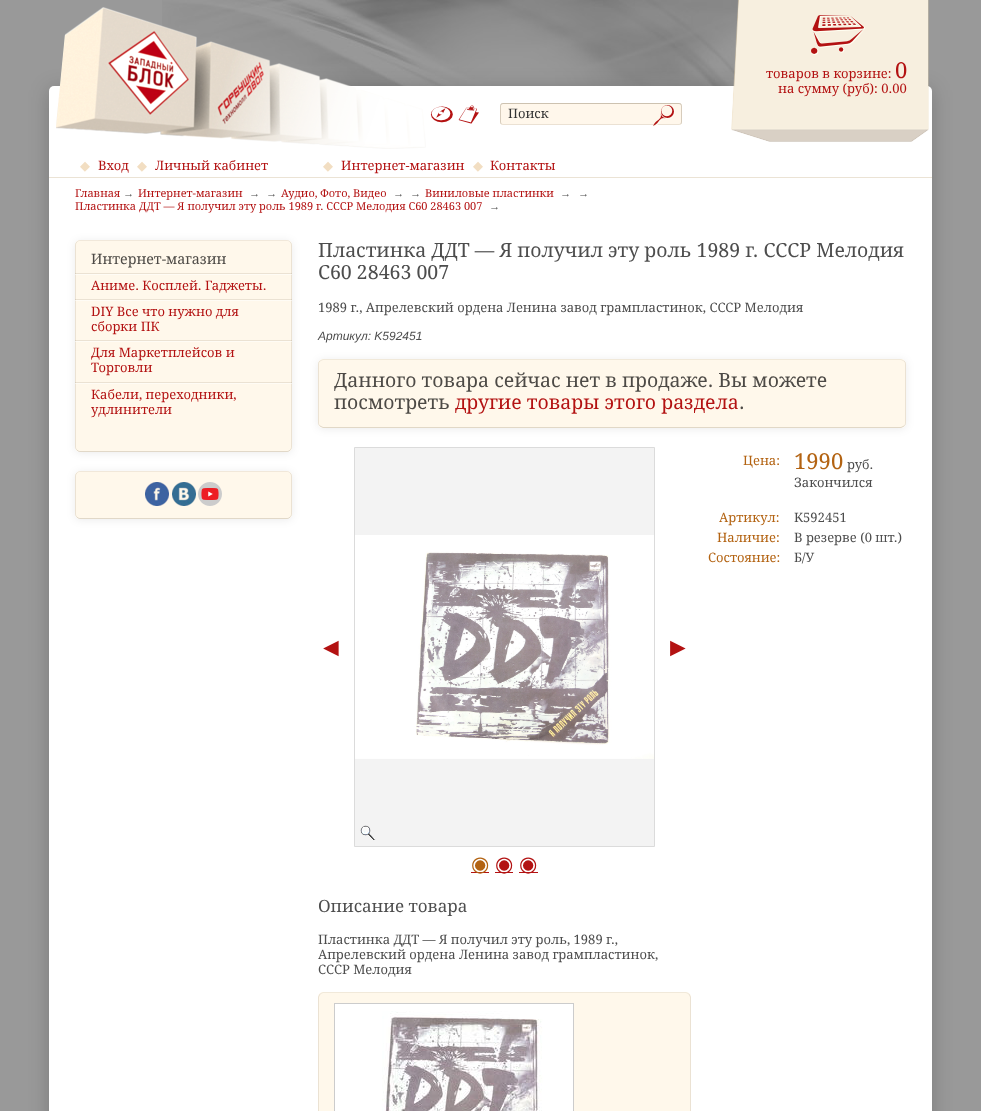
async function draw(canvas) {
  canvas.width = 981;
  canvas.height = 1111;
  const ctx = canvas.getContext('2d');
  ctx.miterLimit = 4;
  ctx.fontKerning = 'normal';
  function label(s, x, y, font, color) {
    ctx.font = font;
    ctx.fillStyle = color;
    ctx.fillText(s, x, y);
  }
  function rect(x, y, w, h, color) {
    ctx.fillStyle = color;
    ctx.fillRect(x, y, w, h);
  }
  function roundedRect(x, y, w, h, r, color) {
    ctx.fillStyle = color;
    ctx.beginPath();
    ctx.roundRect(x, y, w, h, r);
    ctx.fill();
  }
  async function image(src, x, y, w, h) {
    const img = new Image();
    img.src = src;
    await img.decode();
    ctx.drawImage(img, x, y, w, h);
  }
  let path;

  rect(0, 0, 981, 1111, '#999');
  await image('assets/img1.png', 162, 0, 577, 86);
  ctx.fillStyle = '#00000033';
  ctx.filter = 'blur(10px)';
  ctx.beginPath();
  ctx.roundRect(49, 89, 883, 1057, 5);
  ctx.fill();
  ctx.filter = 'none';
  roundedRect(49, 86, 883, 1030, 5, '#fff');
  await image('assets/img2.png', 56, 7, 370, 142);
  await image('assets/img3.png', 770, 0, 141, 142);
  await image('assets/img4.png', 731, 0, 39, 142);
  await image('assets/img5.png', 811, 15, 54, 40);
  await image('assets/img6.png', 911, 0, 18, 142);
  label('товаров в корзине:', 766, 78, '13px Droid Serif', '#b31212');
  label('0', 895, 78, '22px Droid Serif', '#b31212');
  label('на сумму (руб): 0.00', 778, 93, '13px Droid Serif', '#b31212');
  await image('assets/img7.png', 430, 106, 23, 17);
  await image('assets/img8.png', 458, 105, 21, 19);
  roundedRect(500, 103, 182, 22, 3, '#fff7eb');
  path = new Path2D('M501 104L503 103.5H679L681 104');
  ctx.strokeStyle = '#36230040';
  ctx.stroke(path);
  path = new Path2D('M681 104C681 104.5 681.5 105.5 681.5 106V122C681.5 122.5 681 123.5 681 124');
  ctx.strokeStyle = '#36230033';
  ctx.stroke(path);
  path = new Path2D('M681 124L679 124.5H503L501 124');
  ctx.strokeStyle = '#3623001a';
  ctx.stroke(path);
  path = new Path2D('M501 124C501 123.5 500.5 122.5 500.5 122V106C500.5 105.5 501 104.5 501 104');
  ctx.strokeStyle = '#36230033';
  ctx.stroke(path);
  label('Поиск', 508, 118, '13px Droid Serif', '#333');
  await image('assets/img9.png', 653, 105, 22, 22);
  rect(49, 177, 883, 1, '#ebe3d5');
  label('◆', 80, 170, '13px DejaVu Sans', '#f2dec2');
  label('Вход', 98, 170, '13px Droid Serif', '#b31212');
  label('◆', 137, 170, '13px DejaVu Sans', '#f2dec2');
  label('Личный кабинет', 155, 170, '13px Droid Serif', '#b31212');
  label('◆', 323, 170, '13px DejaVu Sans', '#f2dec2');
  label('Интернет-магазин', 341, 170, '13px Droid Serif', '#b31212');
  label('◆', 473, 170, '13px DejaVu Sans', '#f2dec2');
  label('Контакты', 490, 170, '13px Droid Serif', '#b31212');
  label('Главная', 75, 197, '11px Droid Serif', '#b31212');
  label('→', 123, 197, '11px Liberation Serif', '#4d4d4d');
  label('Интернет-магазин', 138, 197, '11px Droid Serif', '#b31212');
  label('→', 249, 197, '11px Liberation Serif', '#4d4d4d');
  label('→', 266, 197, '11px Liberation Serif', '#4d4d4d');
  label('Аудио, Фото, Видео', 281, 197, '11px Droid Serif', '#b31212');
  label('→', 393, 197, '11px Liberation Serif', '#4d4d4d');
  label('→', 410, 197, '11px Liberation Serif', '#4d4d4d');
  label('Виниловые пластинки', 425, 197, '11px Droid Serif', '#b31212');
  label('→', 560, 197, '11px Liberation Serif', '#4d4d4d');
  label('→', 578, 197, '11px Liberation Serif', '#4d4d4d');
  label('Пластинка ДДТ — Я получил эту роль 1989 г. СССР Мелодия C60 28463 007', 75, 210, '11px Droid Serif', '#b31212');
  label('→', 489, 210, '11px Liberation Serif', '#4d4d4d');
  ctx.save();
  path = new Path2D('M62 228H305V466H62ZM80 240H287C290 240 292 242 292 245V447C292 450 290 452 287 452H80C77 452 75 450 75 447V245C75 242 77 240 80 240Z');
  ctx.clip(path, 'evenodd');
  ctx.fillStyle = '#00000014';
  ctx.filter = 'blur(4px)';
  ctx.beginPath();
  ctx.roundRect(75, 241, 217, 212, 5);
  ctx.fill();
  ctx.filter = 'none';
  ctx.restore();
  roundedRect(75, 240, 217, 212, 5, '#ffa00014');
  path = new Path2D('M77 242C77.5 241 79 240.5 80 240.5H287C288 240.5 289.5 241 290 242');
  ctx.strokeStyle = '#36230012';
  ctx.stroke(path);
  path = new Path2D('M290 242C291 242.5 291.5 244 291.5 245V447C291.5 448 291 449.5 290 450');
  ctx.strokeStyle = '#3623001a';
  ctx.stroke(path);
  path = new Path2D('M290 450C289.5 451 288 451.5 287 451.5H80C79 451.5 77.5 451 77 450');
  ctx.strokeStyle = '#36230026';
  ctx.stroke(path);
  path = new Path2D('M77 450C76 449.5 75.5 448 75.5 447V245C75.5 244 76 242.5 77 242');
  ctx.strokeStyle = '#3623001a';
  ctx.stroke(path);
  label('Интернет-магазин', 91, 264, '14.25px Droid Serif', '#4d4a46');
  rect(75, 273, 217, 1, '#3623001a');
  rect(75, 274, 217, 1, '#ffffff80');
  label('Аниме. Косплей. Гаджеты.', 91, 290, '13px Droid Serif', '#b31212');
  rect(75, 299, 217, 1, '#3623001a');
  rect(75, 300, 217, 1, '#ffffff80');
  label('DIY Все что нужно для', 91, 316, '13px Droid Serif', '#b31212');
  label('сборки ПК', 91, 331, '13px Droid Serif', '#b31212');
  rect(75, 340, 217, 1, '#3623001a');
  rect(75, 341, 217, 1, '#ffffff80');
  label('Для Маркетплейсов и', 91, 357, '13px Droid Serif', '#b31212');
  label('Торговли', 91, 372, '13px Droid Serif', '#b31212');
  rect(75, 382, 217, 1, '#3623001a');
  rect(75, 383, 217, 1, '#ffffff80');
  label('Кабели, переходники,', 91, 399, '13px Droid Serif', '#b31212');
  label('удлинители', 91, 414, '13px Droid Serif', '#b31212');
  ctx.save();
  path = new Path2D('M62 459H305V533H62ZM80 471H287C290 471 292 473 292 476V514C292 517 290 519 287 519H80C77 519 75 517 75 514V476C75 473 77 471 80 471Z');
  ctx.clip(path, 'evenodd');
  ctx.fillStyle = '#00000014';
  ctx.filter = 'blur(4px)';
  ctx.beginPath();
  ctx.roundRect(75, 472, 217, 48, 5);
  ctx.fill();
  ctx.filter = 'none';
  ctx.restore();
  roundedRect(75, 471, 217, 48, 5, '#ffa00014');
  path = new Path2D('M77 473C77.5 472 79 471.5 80 471.5H287C288 471.5 289.5 472 290 473');
  ctx.strokeStyle = '#36230012';
  ctx.stroke(path);
  path = new Path2D('M290 473C291 473.5 291.5 475 291.5 476V514C291.5 515 291 516.5 290 517');
  ctx.strokeStyle = '#3623001a';
  ctx.stroke(path);
  path = new Path2D('M290 517C289.5 518 288 518.5 287 518.5H80C79 518.5 77.5 518 77 517');
  ctx.strokeStyle = '#36230026';
  ctx.stroke(path);
  path = new Path2D('M77 517C76 516.5 75.5 515 75.5 514V476C75.5 475 76 473.5 77 473');
  ctx.strokeStyle = '#3623001a';
  ctx.stroke(path);
  await image('assets/img10.png', 145, 482, 24, 24);
  await image('assets/img11.png', 172, 482, 24, 24);
  await image('assets/img12.png', 198, 482, 24, 24);
  label('Пластинка ДДТ — Я получил эту роль 1989 г. СССР Мелодия', 318, 257, '19.5px Droid Serif', '#4d4d4d');
  label('C60 28463 007', 318, 279, '19.5px Droid Serif', '#4d4d4d');
  label('1989 г., Апрелевский ордена Ленина завод грампластинок, СССР Мелодия', 318, 312, '13px Droid Serif', '#4d4d4d');
  label('Артикул: K592451', 318, 340, 'italic 12px Liberation Sans', '#4d4d4d');
  ctx.save();
  path = new Path2D('M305 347H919V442H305ZM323 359H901C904 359 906 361 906 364V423C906 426 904 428 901 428H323C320 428 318 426 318 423V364C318 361 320 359 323 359Z');
  ctx.clip(path, 'evenodd');
  ctx.fillStyle = '#00000014';
  ctx.filter = 'blur(4px)';
  ctx.beginPath();
  ctx.roundRect(318, 360, 588, 69, 5);
  ctx.fill();
  ctx.filter = 'none';
  ctx.restore();
  roundedRect(318, 359, 588, 69, 5, '#ffa00014');
  path = new Path2D('M320 361L323 359.5H901L904 361');
  ctx.strokeStyle = '#f1e9da';
  ctx.stroke(path);
  path = new Path2D('M904 361C905 361.5 905.5 363 905.5 364V423C905.5 424 905 425.5 904 426');
  ctx.strokeStyle = '#3623001a';
  ctx.stroke(path);
  path = new Path2D('M904 426L901 427.5H323L320 426');
  ctx.strokeStyle = '#e1d8c7';
  ctx.stroke(path);
  path = new Path2D('M320 426C319 425.5 318.5 424 318.5 423V364C318.5 363 319 361.5 320 361');
  ctx.strokeStyle = '#3623001a';
  ctx.stroke(path);
  label('Данного товара сейчас нет в продаже. Вы можете', 334, 387, '19.5px Droid Serif', '#4d4a46');
  label('посмотреть', 334, 409, '19.5px Droid Serif', '#4d4a46');
  label('другие товары этого раздела', 455, 409, '19.5px Droid Serif', '#b31212');
  label('.', 739, 409, '19.5px Droid Serif', '#4d4a46');
  label('Цена:', 743, 465, '13px Droid Serif', '#b36312');
  label('1990', 794, 469, '22px Droid Serif', '#b36312');
  label('руб.', 847, 469, '13px Droid Serif', '#4d4d4d');
  label('Закончился', 794, 487, '13px Droid Serif', '#4d4d4d');
  label('Артикул:', 719, 522, '13px Droid Serif', '#b36312');
  label('K592451', 794, 522, '13px Droid Serif', '#4d4d4d');
  label('Наличие:', 717, 542, '13px Droid Serif', '#b36312');
  label('В резерве (0 шт.)', 794, 542, '13px Droid Serif', '#4d4d4d');
  label('Состояние:', 708, 562, '13px Droid Serif', '#b36312');
  label('Б/У', 794, 562, '13px Droid Serif', '#4d4d4d');
  label('◄', 318, 656, '26px Liberation Serif', '#b31212');
  ctx.fillStyle = '#f3f3f3';
  ctx.beginPath();
  ctx.rect(354.5, 447.5, 300, 399);
  ctx.fill();
  ctx.strokeStyle = '#dbdbdb';
  ctx.stroke();
  await image('assets/img13.png', 355, 535, 299, 224);
  await image('assets/img14.png', 360, 825, 16, 15);
  label('►', 665, 656, '26px Liberation Serif', '#b31212');
  rect(471, 872, 18, 1, '#b31212');
  label('◉', 471, 871, '21px DejaVu Sans', '#b36312');
  rect(495, 872, 18, 1, '#b31212');
  label('◉', 495, 871, '21px DejaVu Sans', '#b31212');
  rect(519, 872, 19, 1, '#b31212');
  label('◉', 519, 871, '21px DejaVu Sans', '#b31212');
  label('Описание товара', 318, 912, '17px Droid Serif', '#4d4d4d');
  label('Пластинка ДДТ — Я получил эту роль, 1989 г.,', 318, 944, '13px Droid Serif', '#4d4d4d');
  label('Апрелевский ордена Ленина завод грампластинок,', 318, 959, '13px Droid Serif', '#4d4d4d');
  label('СССР Мелодия', 318, 974, '13px Droid Serif', '#4d4d4d');
  roundedRect(318, 992, 373, 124, 5, '#ffa00014');
  path = new Path2D('M320 994L323 992.5H686L689 994');
  ctx.strokeStyle = '#f1e9da';
  ctx.stroke(path);
  path = new Path2D('M689 994L690.5 997V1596L689 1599');
  ctx.strokeStyle = '#ebe2d3';
  ctx.stroke(path);
  path = new Path2D('M320 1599L318.5 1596V997L320 994');
  ctx.stroke(path);
  await image('assets/img15.png', 335, 1004, 238, 107);
  ctx.strokeStyle = '#ccc';
  ctx.strokeRect(334.5, 1003.5, 239, 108);
}

draw(document.querySelector('canvas'));
